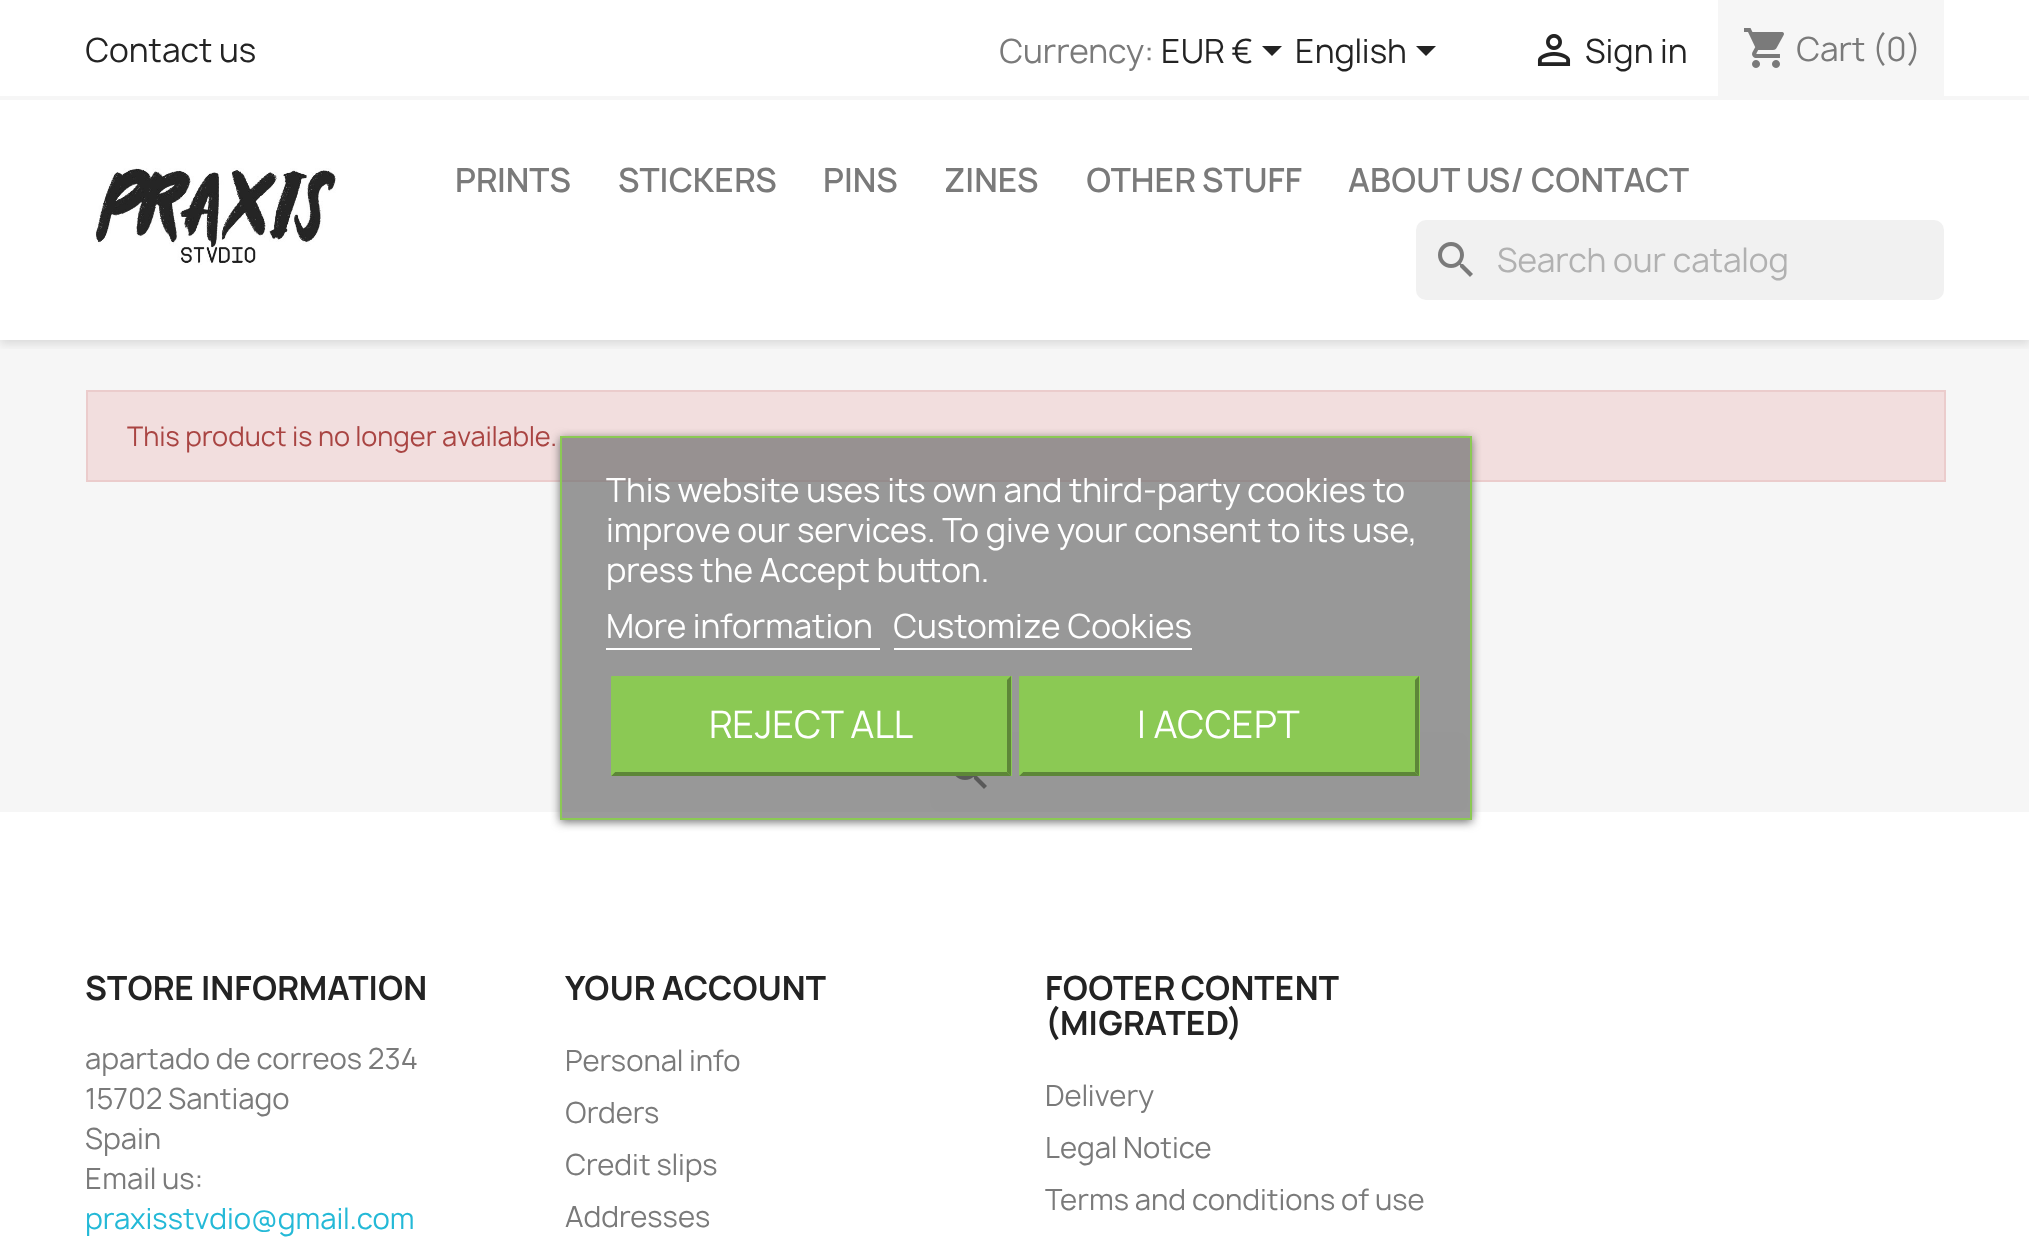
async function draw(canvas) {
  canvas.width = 2029;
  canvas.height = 1255;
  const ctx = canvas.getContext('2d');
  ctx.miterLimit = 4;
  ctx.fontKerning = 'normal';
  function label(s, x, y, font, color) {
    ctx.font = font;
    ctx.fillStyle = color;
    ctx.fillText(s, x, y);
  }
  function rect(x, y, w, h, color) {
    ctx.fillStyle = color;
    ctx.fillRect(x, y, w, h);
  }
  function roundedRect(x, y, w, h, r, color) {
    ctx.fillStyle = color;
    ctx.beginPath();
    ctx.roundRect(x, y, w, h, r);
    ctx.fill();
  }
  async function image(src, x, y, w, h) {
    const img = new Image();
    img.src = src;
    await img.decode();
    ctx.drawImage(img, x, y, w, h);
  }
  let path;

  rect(0, 0, 2029, 1255, '#fff');
  rect(0, 340, 2029, 472, '#f6f6f6');
  ctx.save();
  ctx.beginPath();
  ctx.rect(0, 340, 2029, 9);
  ctx.clip();
  ctx.fillStyle = '#0000001c';
  ctx.filter = 'blur(5px)';
  ctx.beginPath();
  ctx.rect(0, 4, 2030, 340);
  ctx.fill();
  ctx.filter = 'none';
  ctx.restore();
  rect(0, 96, 2029, 4, '#f6f6f6');
  label('Contact us', 85, 62, '32px Manrope', '#232323');
  label('Currency:', 999, 63, '32px Manrope', '#7a7a7a');
  label('EUR €', 1161, 63, '32px Manrope', '#232323');
  path = new Path2D('M1262 46H1282L1272 56Z');
  ctx.fill(path);
  label('English', 1295, 63, '32px Manrope', '#232323');
  path = new Path2D('M1416 46H1436L1426 56Z');
  ctx.fill(path);
  await image('assets/img1.png', 1537, 34, 34, 32);
  label('Sign in', 1585, 63, '32px Manrope', '#232323');
  rect(1718, 0, 226, 96, '#f6f6f6');
  await image('assets/img2.png', 1744, 28, 40, 40);
  label('Cart (0)', 1796, 61, '32px Manrope', '#7a7a7a');
  await image('assets/img3.png', 95, 168, 241, 97);
  label('PRINTS', 455, 192, '600 32px Manrope', '#7a7a7a');
  label('STICKERS', 618, 192, '600 32px Manrope', '#7a7a7a');
  label('PINS', 823, 192, '600 32px Manrope', '#7a7a7a');
  label('ZINES', 944, 192, '600 32px Manrope', '#7a7a7a');
  label('OTHER STUFF', 1086, 192, '600 32px Manrope', '#7a7a7a');
  label('ABOUT US/ CONTACT', 1348, 192, '600 32px Manrope', '#7a7a7a');
  roundedRect(1416, 220, 528, 80, 10, '#f1f1f1');
  await image('assets/img4.png', 1438, 242, 35, 35);
  label('Search our catalog', 1497, 272, '32px Manrope', '#b1b1b1');
  ctx.fillStyle = '#f2dede';
  ctx.beginPath();
  ctx.rect(87, 391, 1858, 90);
  ctx.fill();
  ctx.strokeStyle = '#ebcccc';
  ctx.lineWidth = 2;
  ctx.stroke();
  label('This product is no longer available.', 127, 446, '26px Manrope', '#a94442');
  roundedRect(930, 732, 538, 80, 10, '#f1f1f1');
  await image('assets/img5.png', 955, 776, 32, 13);
  ctx.save();
  path = new Path2D('M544 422H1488V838H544ZM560 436H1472V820H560Z');
  ctx.clip(path, 'evenodd');
  ctx.fillStyle = '#707070';
  ctx.filter = 'blur(5px)';
  ctx.beginPath();
  ctx.rect(560, 438, 912, 384);
  ctx.fill();
  ctx.filter = 'none';
  ctx.restore();
  ctx.fillStyle = '#707070b3';
  ctx.beginPath();
  ctx.rect(561, 437, 910, 382);
  ctx.fill();
  ctx.strokeStyle = '#8bc954';
  ctx.stroke();
  label('This website uses its own and third-party cookies to', 606, 502, '32px Manrope', '#fff');
  label('improve our services. To give your consent to its use,', 606, 542, '32px Manrope', '#fff');
  label('press the Accept button.', 606, 582, '32px Manrope', '#fff');
  label('More information', 606, 638, '32px Manrope', '#fff');
  rect(606, 648, 274, 2, '#fff');
  label('Customize Cookies', 893, 638, '32px Manrope', '#fff');
  rect(894, 648, 298, 2, '#fff');
  rect(612, 676, 400, 100, '#8bc954');
  path = new Path2D('M611 676H1011L1007 680H615Z');
  ctx.fill(path);
  ctx.fillStyle = '#5d8638';
  path = new Path2D('M1011 676V776L1007 772V680Z');
  ctx.fill(path);
  path = new Path2D('M1011 776H611L615 772H1007Z');
  ctx.fill(path);
  ctx.fillStyle = '#8bc954';
  path = new Path2D('M611 776V676L615 680V772Z');
  ctx.fill(path);
  label('REJECT ALL', 709, 738, '36.5px Manrope', '#fff');
  rect(1020, 676, 400, 100, '#8bc954');
  path = new Path2D('M1019 676H1419L1415 680H1023Z');
  ctx.fill(path);
  ctx.fillStyle = '#5d8638';
  path = new Path2D('M1419 676V776L1415 772V680Z');
  ctx.fill(path);
  path = new Path2D('M1419 776H1019L1023 772H1415Z');
  ctx.fill(path);
  ctx.fillStyle = '#8bc954';
  path = new Path2D('M1019 776V676L1023 680V772Z');
  ctx.fill(path);
  label('I ACCEPT', 1137, 738, '36.5px Manrope', '#fff');
  label('STORE INFORMATION', 85, 1000, 'bold 32px Manrope', '#232323');
  label('apartado de correos 234', 85, 1069, '28px Manrope', '#7a7a7a');
  label('15702 Santiago', 85, 1109, '28px Manrope', '#7a7a7a');
  label('Spain', 85, 1149, '28px Manrope', '#7a7a7a');
  label('Email us:', 85, 1189, '28px Manrope', '#7a7a7a');
  label('praxisstvdio@gmail.com', 85, 1229, '28px Manrope', '#24b9d7');
  label('YOUR ACCOUNT', 565, 1000, 'bold 32px Manrope', '#232323');
  label('Personal info', 565, 1071, '28px Manrope', '#7a7a7a');
  label('Orders', 565, 1123, '28px Manrope', '#7a7a7a');
  label('Credit slips', 565, 1175, '28px Manrope', '#7a7a7a');
  label('Addresses', 565, 1227, '28px Manrope', '#7a7a7a');
  ctx.wordSpacing = '-1px';
  label('FOOTER CONTENT', 1045, 1000, 'bold 32px Manrope', '#232323');
  ctx.wordSpacing = '0px';
  label('(MIGRATED)', 1045, 1035, 'bold 32px Manrope', '#232323');
  label('Delivery', 1045, 1106, '28px Manrope', '#7a7a7a');
  label('Legal Notice', 1045, 1158, '28px Manrope', '#7a7a7a');
  label('Terms and conditions of use', 1045, 1210, '28px Manrope', '#7a7a7a');
}

draw(document.querySelector('canvas'));
